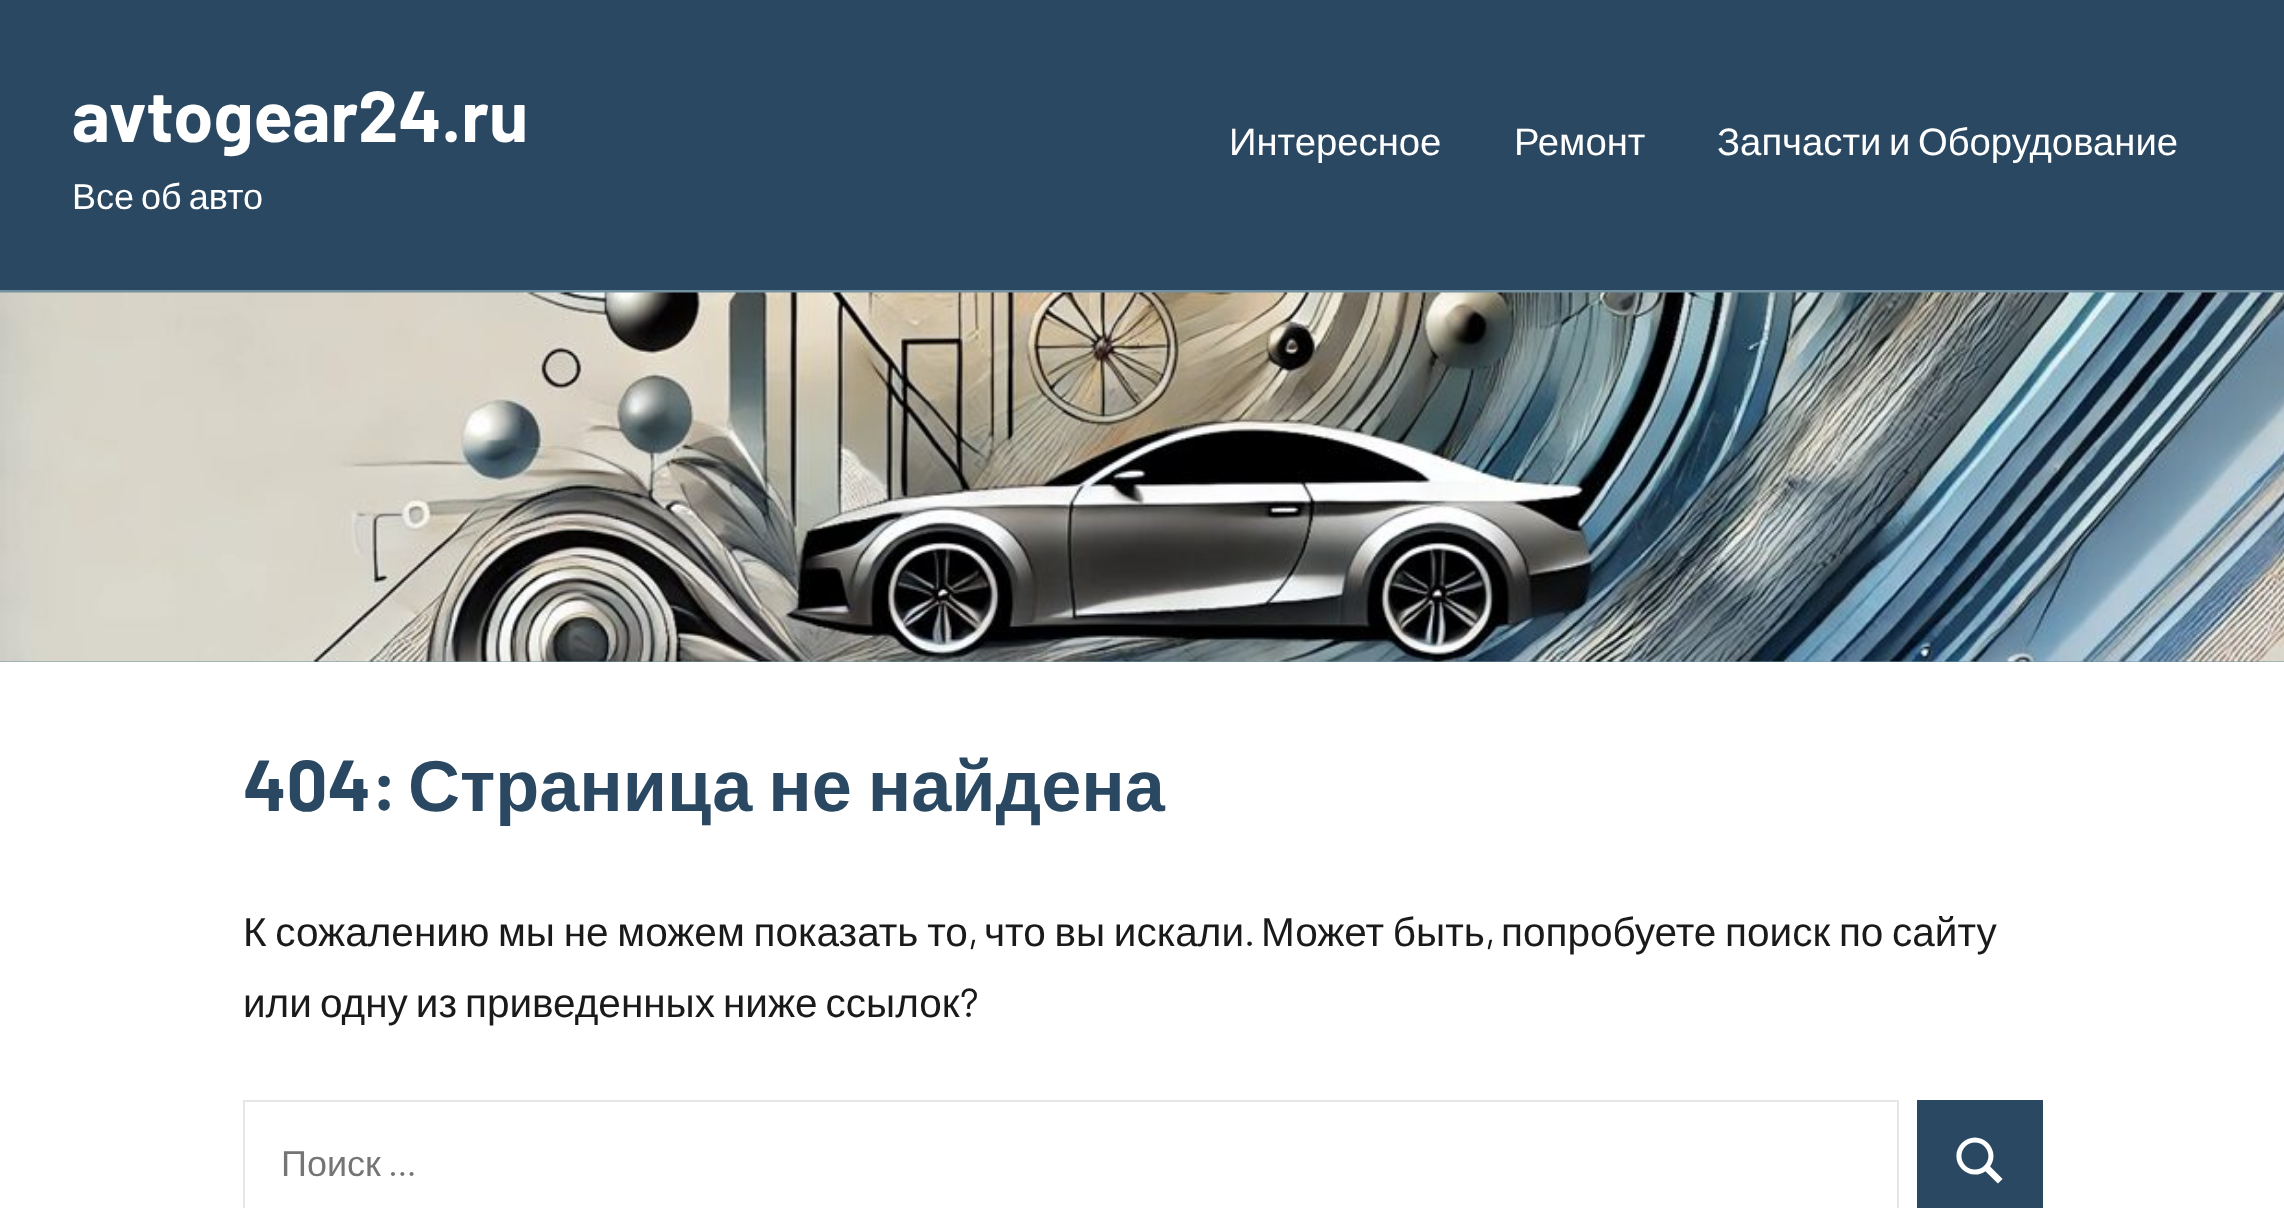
async function draw(canvas) {
  canvas.width = 2284;
  canvas.height = 1208;
  const ctx = canvas.getContext('2d');
  ctx.miterLimit = 4;
  ctx.fontKerning = 'normal';
  function label(s, x, y, font, color) {
    ctx.font = font;
    ctx.fillStyle = color;
    ctx.fillText(s, x, y);
  }
  function rect(x, y, w, h, color) {
    ctx.fillStyle = color;
    ctx.fillRect(x, y, w, h);
  }
  async function image(src, x, y, w, h) {
    const img = new Image();
    img.src = src;
    await img.decode();
    ctx.drawImage(img, x, y, w, h);
  }

  rect(0, 0, 2284, 1208, '#7390a0');
  rect(0, 0, 2284, 290, '#2a4861');
  label('avtogear24.ru', 72, 142, 'bold 72px Barlow', '#fff');
  ctx.wordSpacing = '-3px';
  label('Все об авто', 72, 209, '36px Liberation Sans', '#fff');
  ctx.wordSpacing = '0px';
  label('Интересное', 1229, 155, '38.25px Liberation Sans', '#fff');
  label('Ремонт', 1514, 155, '38.25px Liberation Sans', '#fff');
  ctx.wordSpacing = '-3px';
  label('Запчасти и Оборудование', 1717, 155, '38.25px Liberation Sans', '#fff');
  await image('assets/img1.png', 0, 292, 2284, 370);
  rect(0, 662, 2284, 546, '#fff');
  ctx.wordSpacing = '0px';
  label('404:', 243, 811, 'bold 72px Barlow', '#2a4861');
  ctx.wordSpacing = '-4px';
  label('Страница не найдена', 408, 811, 'bold 72px Liberation Sans', '#2a4861');
  ctx.wordSpacing = '-2.5px';
  label('К сожалению мы не можем показать то', 243, 946, '40.5px Liberation Sans', '#1a1a1a');
  ctx.wordSpacing = '0px';
  label(',', 968, 946, '40.5px Barlow', '#1a1a1a');
  ctx.wordSpacing = '-2.5px';
  label('что вы искали', 984, 946, '40.5px Liberation Sans', '#1a1a1a');
  ctx.wordSpacing = '0px';
  label('.', 1244, 946, '40.5px Barlow', '#1a1a1a');
  ctx.wordSpacing = '-2.5px';
  label('Может быть', 1261, 946, '40.5px Liberation Sans', '#1a1a1a');
  ctx.wordSpacing = '0px';
  label(',', 1485, 946, '40.5px Barlow', '#1a1a1a');
  ctx.wordSpacing = '-2.5px';
  label('попробуете поиск по сайту', 1501, 946, '40.5px Liberation Sans', '#1a1a1a');
  ctx.wordSpacing = '-3.25px';
  label('или одну из приведенных ниже ссылок', 243, 1017, '40.5px Liberation Sans', '#1a1a1a');
  ctx.wordSpacing = '0px';
  label('?', 960, 1017, '40.5px Barlow', '#1a1a1a');
  ctx.strokeStyle = '#e6e6e6';
  ctx.lineWidth = 2;
  ctx.strokeRect(244, 1101, 1654, 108);
  label('Поиск', 281, 1176, '36px Liberation Sans', '#757575');
  label('…', 388, 1176, '36px Barlow', '#757575');
  rect(1917, 1100, 126, 108, '#2a4861');
  await image('assets/img2.png', 1956, 1137, 47, 47);
}

draw(document.querySelector('canvas'));
